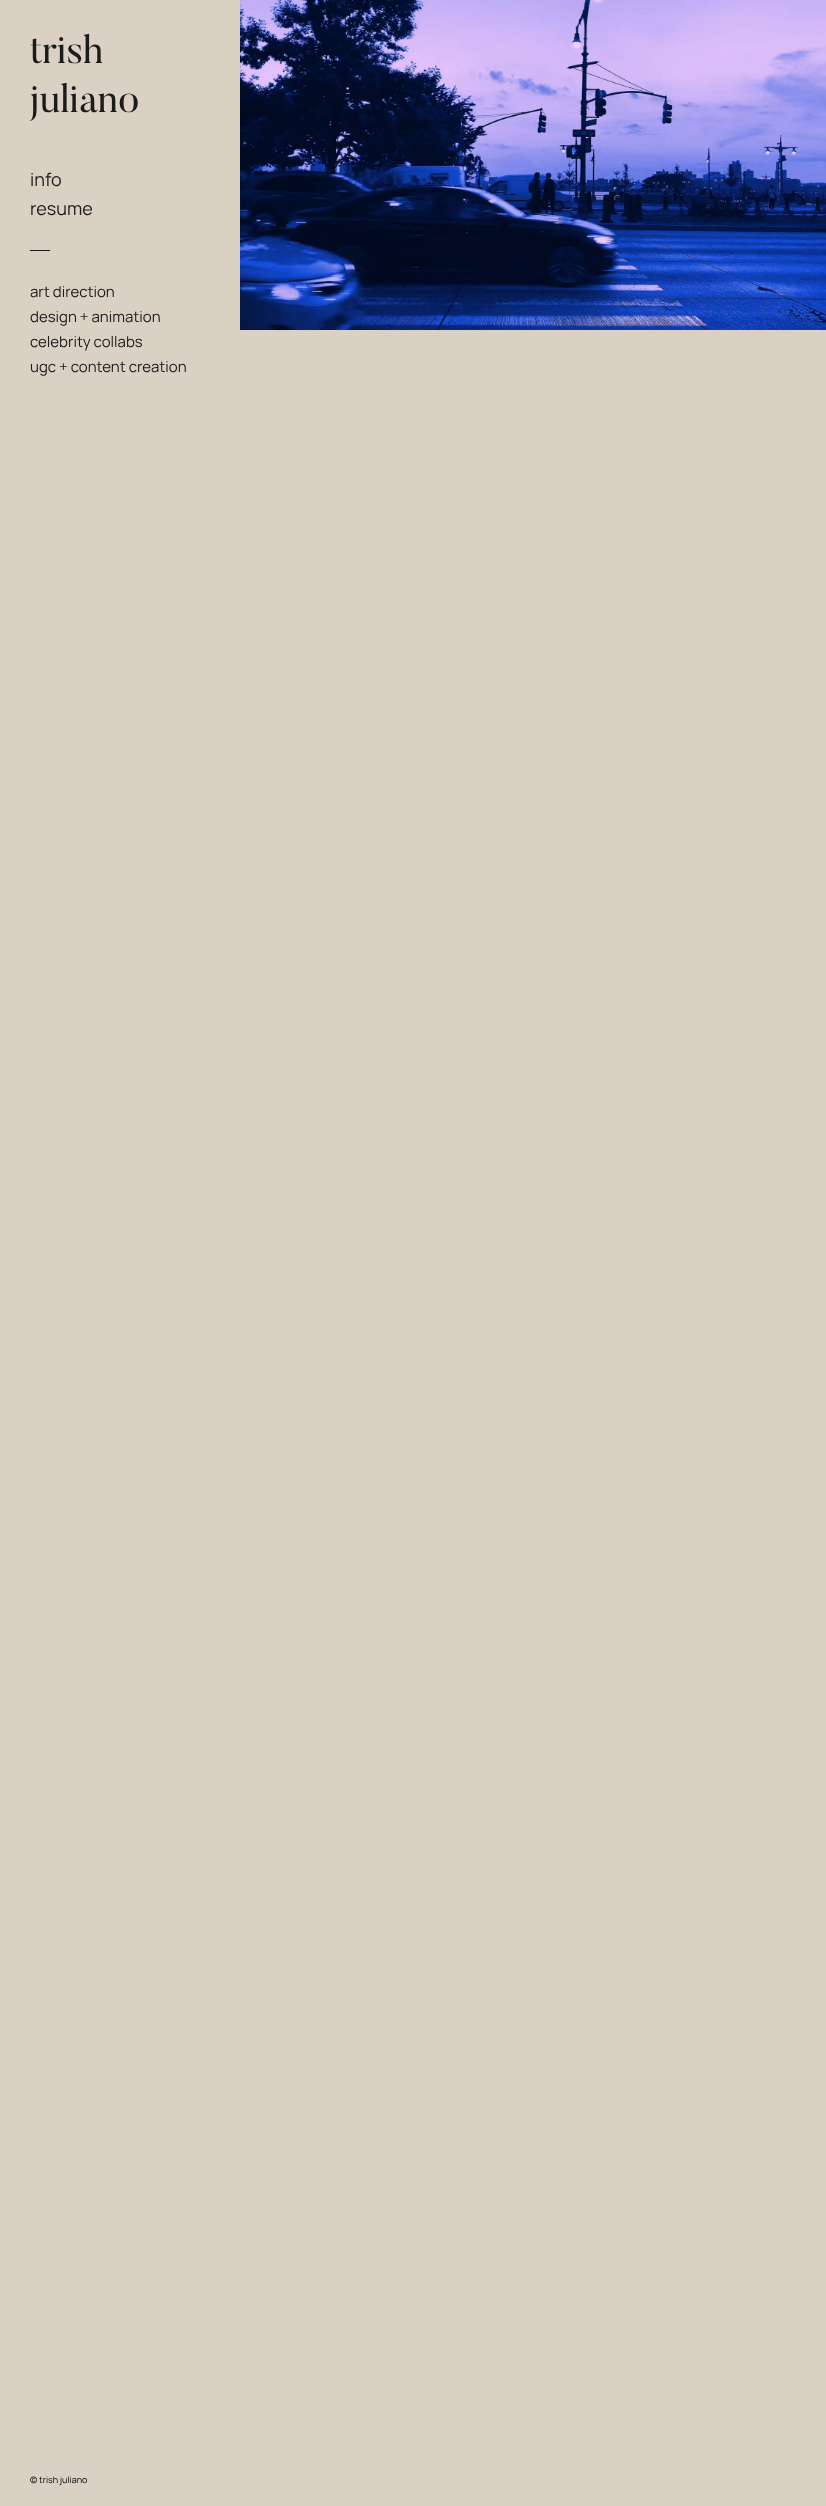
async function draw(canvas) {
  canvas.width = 826;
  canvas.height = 2506;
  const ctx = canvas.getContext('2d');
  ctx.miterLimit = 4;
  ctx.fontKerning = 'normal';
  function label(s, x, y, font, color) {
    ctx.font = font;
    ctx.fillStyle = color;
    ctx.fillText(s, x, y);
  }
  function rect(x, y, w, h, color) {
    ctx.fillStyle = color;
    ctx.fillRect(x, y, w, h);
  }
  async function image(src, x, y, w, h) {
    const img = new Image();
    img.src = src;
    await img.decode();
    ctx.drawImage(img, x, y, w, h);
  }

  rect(0, 0, 826, 2506, '#dad1c4');
  label('trish', 30, 63, '39.5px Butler', '#1b1b1b');
  label('juliano', 30, 112, '39.5px Butler', '#1b1b1b');
  label('info', 30, 186, '18px Manrope', '#1b1b1b');
  label('resume', 30, 215, '18px Manrope', '#1b1b1b');
  rect(30, 250, 20, 1, '#1b1b1b');
  label('art direction', 30, 297, '15px Manrope', '#1b1b1b');
  label('design + animation', 30, 322, '15px Manrope', '#1b1b1b');
  label('celebrity collabs', 30, 347, '15px Manrope', '#1b1b1b');
  label('ugc + content creation', 30, 372, '15px Manrope', '#1b1b1b');
  label('© trish juliano', 30, 2483, '9px Manrope', '#000');
  await image('assets/img1.png', 240, 0, 586, 330);
}

draw(document.querySelector('canvas'));
